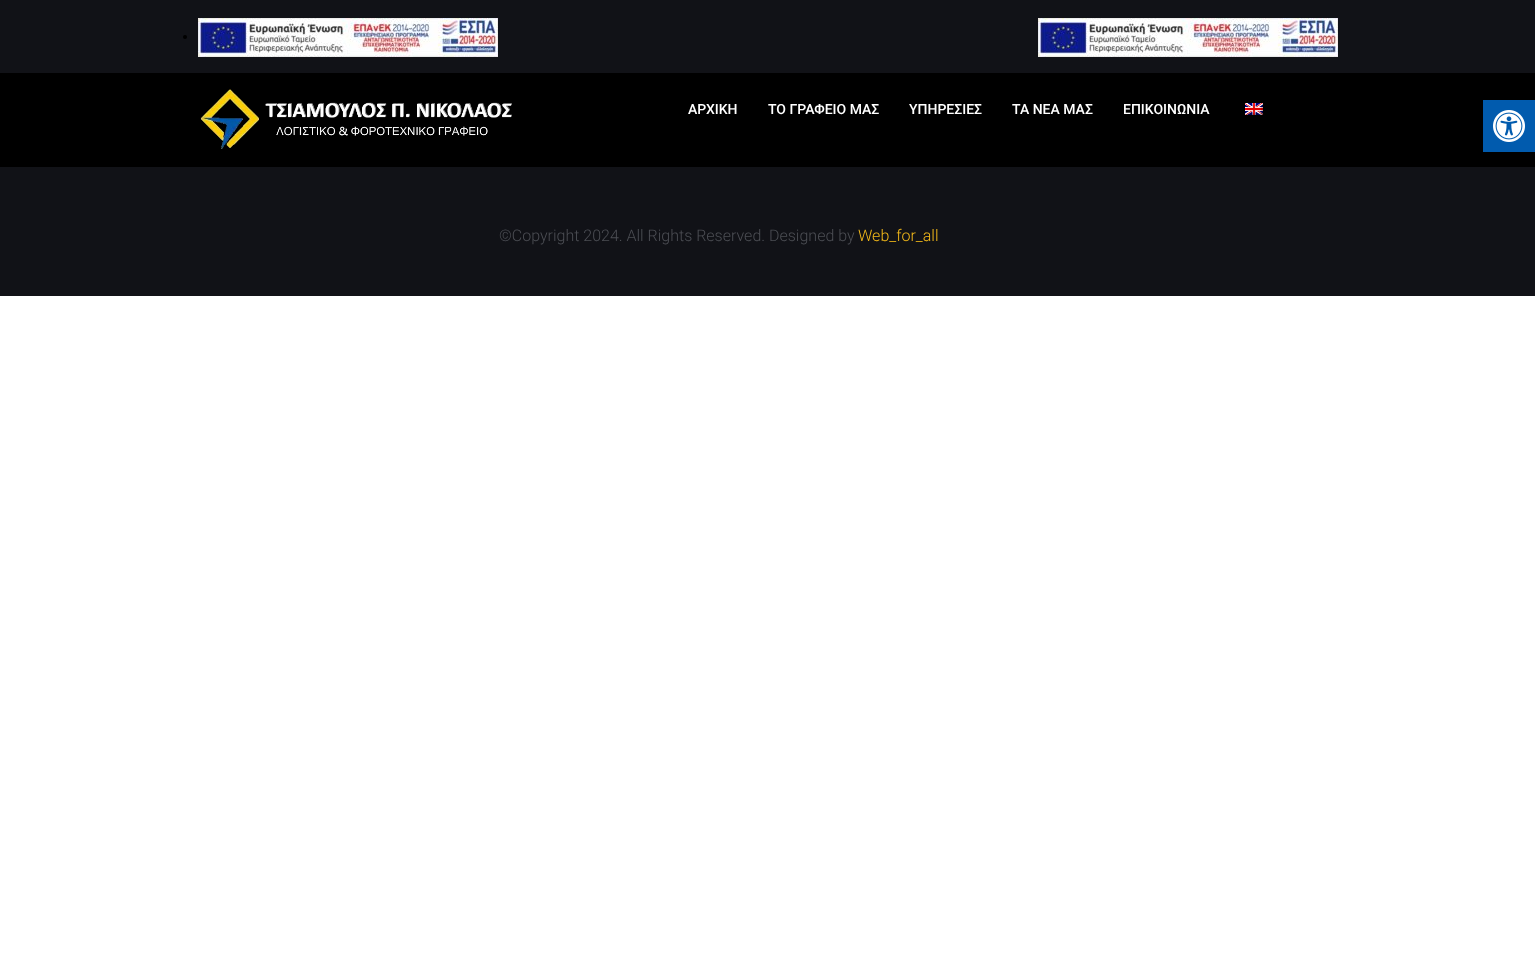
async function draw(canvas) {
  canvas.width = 1535;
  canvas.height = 960;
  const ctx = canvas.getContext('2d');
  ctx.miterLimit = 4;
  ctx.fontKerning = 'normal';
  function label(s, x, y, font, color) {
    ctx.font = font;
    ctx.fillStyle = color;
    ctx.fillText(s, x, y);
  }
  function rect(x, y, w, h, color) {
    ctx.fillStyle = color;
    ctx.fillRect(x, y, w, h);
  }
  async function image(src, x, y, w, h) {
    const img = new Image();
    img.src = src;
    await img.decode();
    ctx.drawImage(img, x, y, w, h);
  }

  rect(0, 0, 1535, 960, '#fff');
  rect(0, 73, 1535, 94, '#000');
  rect(0, 0, 1535, 73, '#111217');
  ctx.fillStyle = '#000';
  ctx.beginPath();
  ctx.arc(185, 37, 2, 0, 2 * Math.PI);
  ctx.fill();
  await image('assets/img1.png', 198, 18, 300, 39);
  await image('assets/img1.png', 1038, 18, 300, 39);
  await image('assets/img2.png', 200, 89, 312, 60);
  label('ΑΡΧΙΚΗ', 688, 114, '500 14px Roboto', '#fff');
  label('ΤΟ ΓΡΑΦΕΙΟ ΜΑΣ', 768, 114, '500 14px Roboto', '#fff');
  label('ΥΠΗΡΕΣΙΕΣ', 909, 114, '500 14px Roboto', '#fff');
  label('ΤΑ ΝΕΑ ΜΑΣ', 1012, 114, '500 14px Roboto', '#fff');
  label('ΕΠΙΚΟΙΝΩΝΙΑ', 1123, 114, '500 14px Roboto', '#fff');
  await image('assets/img3.png', 1245, 103, 18, 12);
  rect(1483, 100, 52, 52, '#015bae');
  await image('assets/img4.png', 1493, 110, 32, 32);
  rect(0, 167, 1535, 129, '#111217');
  label('©Copyright 2024. All Rights Reserved. Designed by', 499, 241, '300 16px Roboto', '#4c4e54');
  label('Web_for_all', 858, 241, '300 16px Roboto', '#f6bb19');
}

draw(document.querySelector('canvas'));
